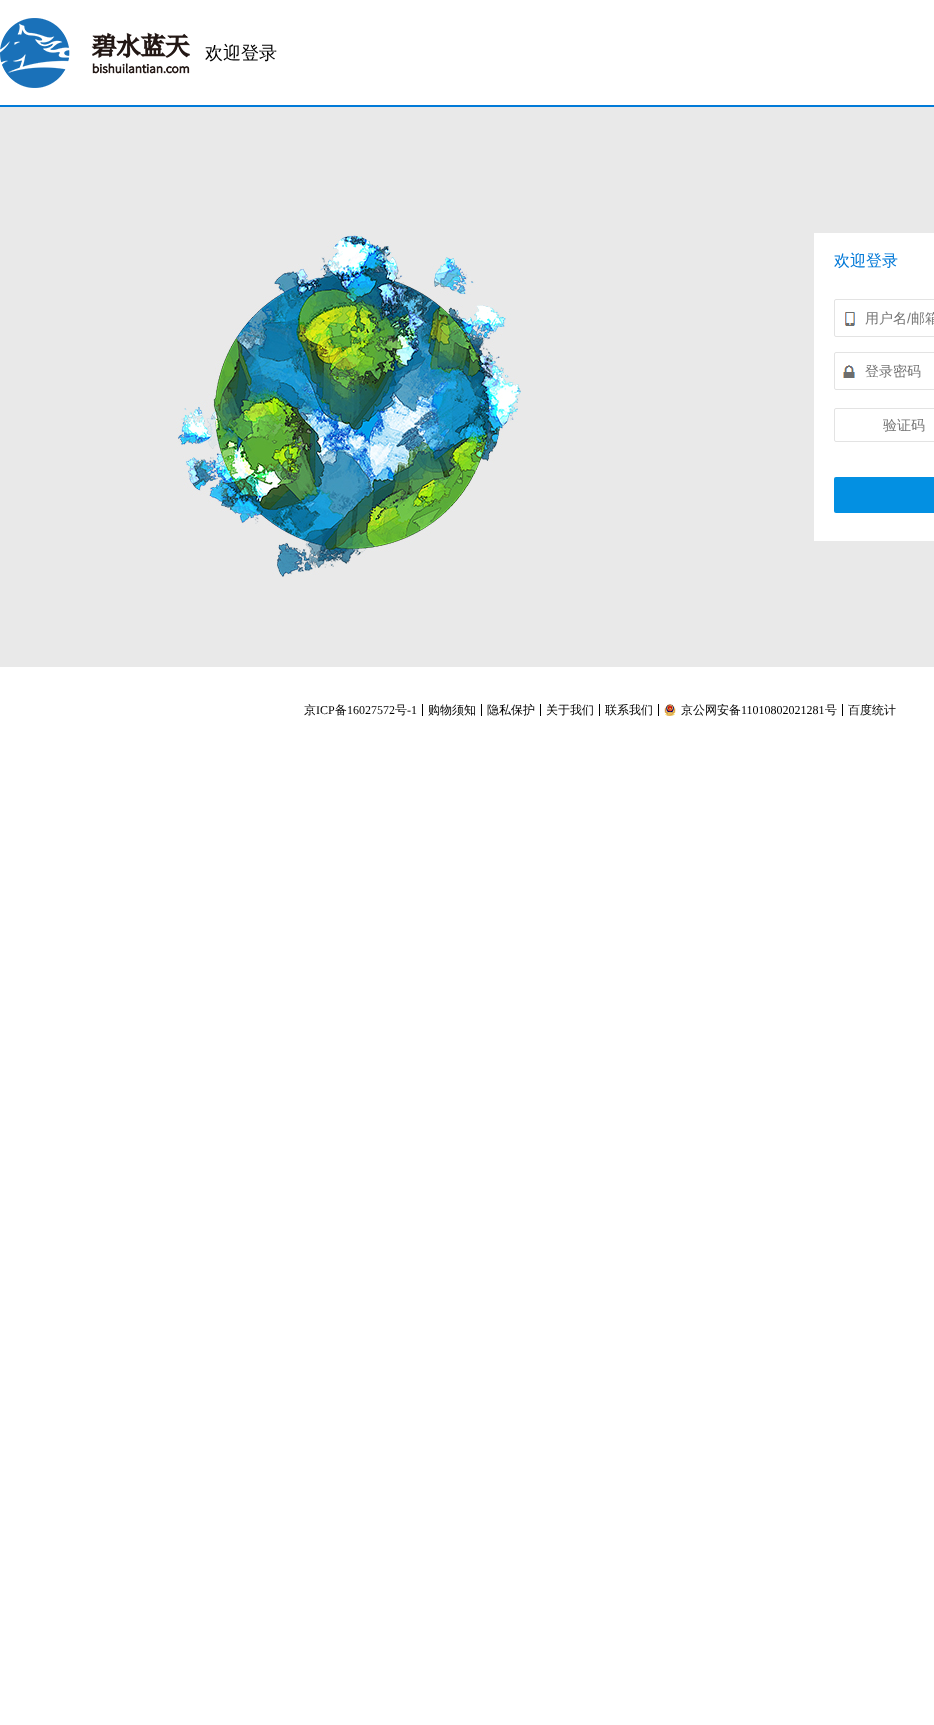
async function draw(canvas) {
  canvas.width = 934;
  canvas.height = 1725;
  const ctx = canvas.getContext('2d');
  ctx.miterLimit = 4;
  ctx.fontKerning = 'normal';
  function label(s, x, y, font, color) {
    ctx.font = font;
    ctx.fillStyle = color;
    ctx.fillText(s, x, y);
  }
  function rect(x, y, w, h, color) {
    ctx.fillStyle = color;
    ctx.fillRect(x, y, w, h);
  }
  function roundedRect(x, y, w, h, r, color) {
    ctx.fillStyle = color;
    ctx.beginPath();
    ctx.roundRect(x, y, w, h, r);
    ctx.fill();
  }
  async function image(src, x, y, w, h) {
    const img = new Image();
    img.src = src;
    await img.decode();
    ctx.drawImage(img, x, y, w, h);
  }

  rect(0, 0, 934, 1725, '#fff');
  rect(0, 105, 934, 2, '#007ad8');
  await image('assets/img1.png', 0, 18, 190, 70);
  label('欢迎登录', 205, 59, '500 18px WenQuanYi Zen Hei', '#000');
  rect(0, 107, 934, 560, '#e9e9e9');
  await image('assets/img2.png', 176, 234, 345, 343);
  rect(814, 233, 120, 308, '#fff');
  label('欢迎登录', 834, 266, '500 16px WenQuanYi Zen Hei', '#0078d7');
  await image('assets/img3.png', 845, 312, 10, 14);
  ctx.beginPath();
  ctx.roundRect(834.5, 299.5, 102, 37, 1.5);
  ctx.strokeStyle = '#e3e3e3';
  ctx.stroke();
  label('用户名', 865, 323, '500 14px WenQuanYi Zen Hei', '#757575');
  label('/', 907, 323, '14px Liberation Sans', '#757575');
  label('邮箱', 911, 323, '500 14px WenQuanYi Zen Hei', '#757575');
  await image('assets/img4.png', 843, 365, 12, 13);
  ctx.beginPath();
  ctx.roundRect(834.5, 352.5, 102, 37, 1.5);
  ctx.stroke();
  label('登录密码', 865, 376, '500 14px WenQuanYi Zen Hei', '#757575');
  ctx.beginPath();
  ctx.roundRect(834.5, 408.5, 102, 33, 1.5);
  ctx.stroke();
  label('验证码', 883, 430, '500 14px WenQuanYi Zen Hei', '#757575');
  roundedRect(834, 477, 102, 36, 2, '#0390e2');
  label('京', 304, 714, '500 12px WenQuanYi Zen Hei', '#000');
  label('ICP', 316, 714, '12px Liberation Serif', '#000');
  label('备', 335, 714, '500 12px WenQuanYi Zen Hei', '#000');
  label('16027572', 347, 714, '12px Liberation Serif', '#000');
  label('号', 395, 714, '500 12px WenQuanYi Zen Hei', '#000');
  label('-1', 407, 714, '12px Liberation Serif', '#000');
  rect(422, 704, 1, 12, '#000');
  label('购物须知', 428, 714, '500 12px WenQuanYi Zen Hei', '#000');
  rect(481, 704, 1, 12, '#000');
  label('隐私保护', 487, 714, '500 12px WenQuanYi Zen Hei', '#000');
  rect(540, 704, 1, 12, '#000');
  label('关于我们', 546, 714, '500 12px WenQuanYi Zen Hei', '#000');
  rect(599, 704, 1, 12, '#000');
  label('联系我们', 605, 714, '500 12px WenQuanYi Zen Hei', '#000');
  rect(658, 704, 1, 12, '#000');
  await image('assets/img5.png', 664, 704, 12, 12);
  label('京公网安备', 681, 714, '500 12px WenQuanYi Zen Hei', '#000');
  label('11010802021281', 741, 714, '12px Liberation Serif', '#000');
  label('号', 825, 714, '500 12px WenQuanYi Zen Hei', '#000');
  rect(842, 704, 1, 12, '#000');
  label('百度统计', 848, 714, '500 12px WenQuanYi Zen Hei', '#000');
}

draw(document.querySelector('canvas'));
